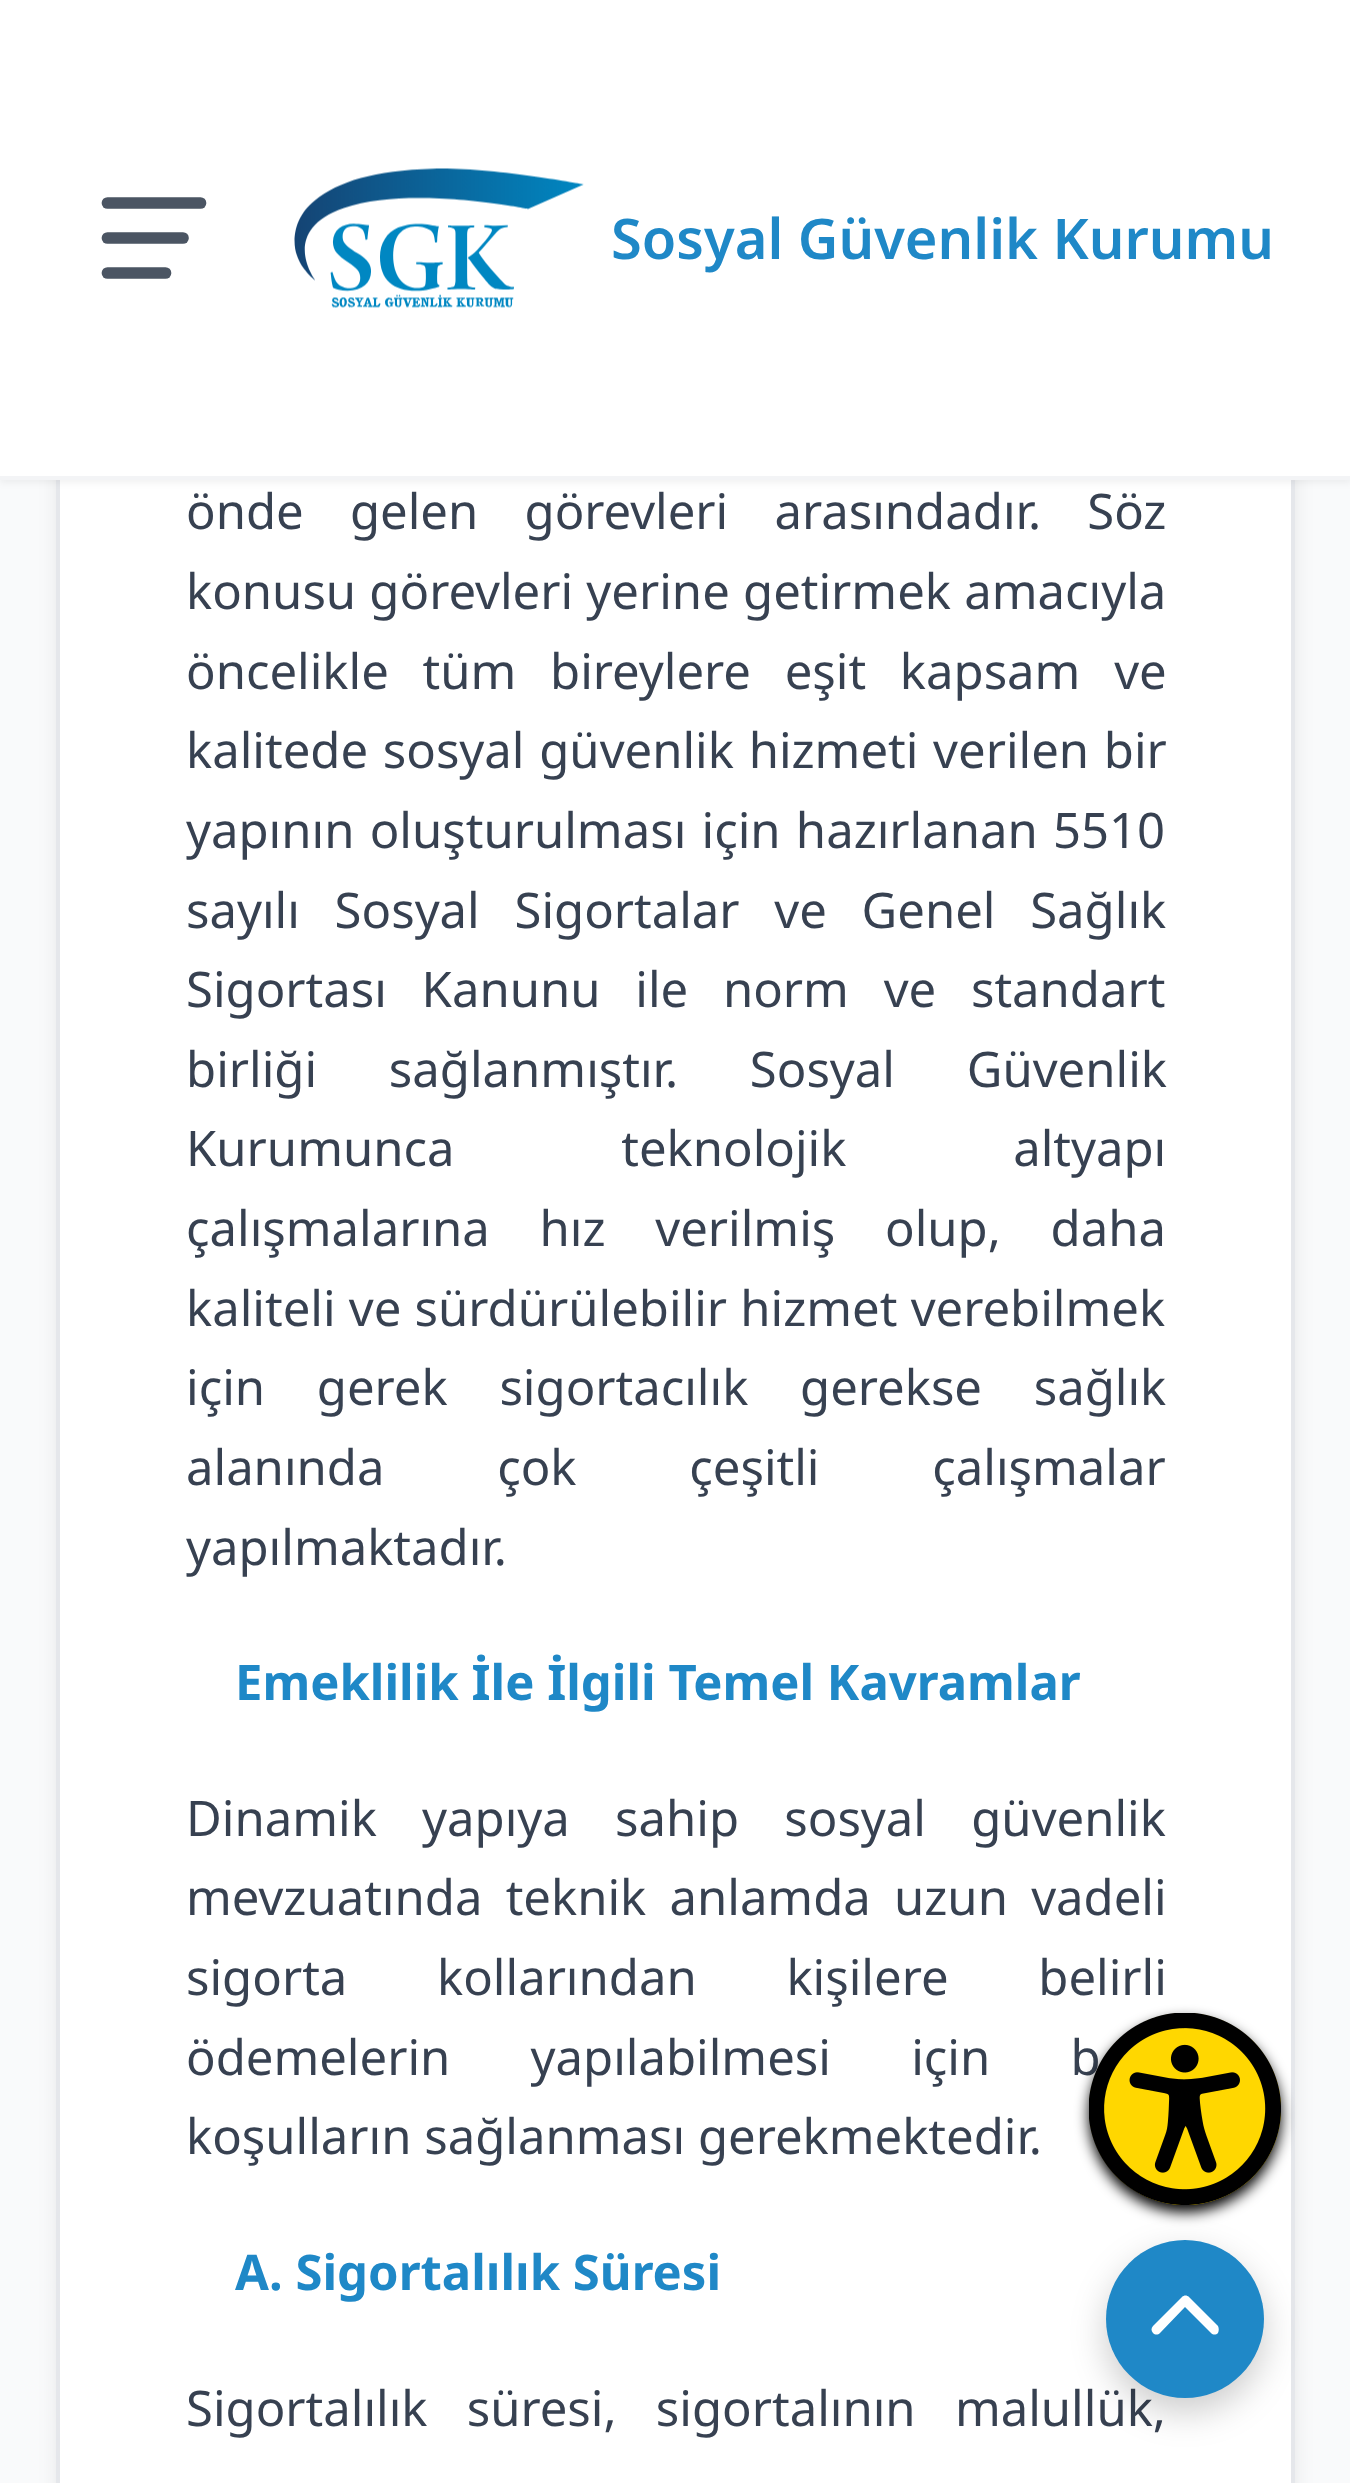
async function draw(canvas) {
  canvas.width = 1350;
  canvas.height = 2483;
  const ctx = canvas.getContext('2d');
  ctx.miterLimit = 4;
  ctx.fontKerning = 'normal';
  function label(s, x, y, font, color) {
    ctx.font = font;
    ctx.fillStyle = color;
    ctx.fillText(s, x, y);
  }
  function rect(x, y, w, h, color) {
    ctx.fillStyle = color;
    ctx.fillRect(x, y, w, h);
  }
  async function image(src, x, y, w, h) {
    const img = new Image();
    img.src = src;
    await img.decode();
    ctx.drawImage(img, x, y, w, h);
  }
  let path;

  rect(0, 0, 1350, 2483, '#f9fafb');
  ctx.fillStyle = '#0000001a';
  ctx.filter = 'blur(10.5px)';
  ctx.beginPath();
  ctx.roundRect(60, -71, 1232, 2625, 39);
  ctx.fill();
  ctx.filter = 'none';
  rect(60, 480, 1231, 2003, '#fff');
  ctx.strokeStyle = '#e5e7eb';
  ctx.lineWidth = 4;
  ctx.strokeRect(58, -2, 1235, 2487);
  ctx.fillStyle = '#0000000d';
  ctx.filter = 'blur(3.5px)';
  ctx.beginPath();
  ctx.rect(0, 4, 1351, 479);
  ctx.fill();
  ctx.filter = 'none';
  rect(0, 0, 1350, 476, '#fff');
  rect(0, 476, 1350, 4, '#f3f4f6');
  path = new Path2D('M107.5 203H200.5');
  ctx.strokeStyle = '#4b5563';
  ctx.lineWidth = 11.7;
  ctx.lineCap = 'round';
  ctx.stroke(path);
  path = new Path2D('M107.5 238H183');
  ctx.stroke(path);
  path = new Path2D('M107.5 273H165.5');
  ctx.stroke(path);
  await image('assets/img1.png', 294, 168, 290, 140);
  label('Sosyal Güvenlik Kurumu', 611, 259, '600 56px Noto Sans', '#1f88c7');
  ctx.wordSpacing = '33.5px';
  label('önde gelen görevleri arasındadır. Söz', 186, 529, '49px Noto Sans', '#374151');
  ctx.wordSpacing = '0.5px';
  label('konusu görevleri yerine getirmek amacıyla', 186, 609, '49px Noto Sans', '#374151');
  ctx.wordSpacing = '21px';
  label('öncelikle tüm bireylere eşit kapsam ve', 186, 689, '49px Noto Sans', '#374151');
  ctx.wordSpacing = '2px';
  label('kalitede sosyal güvenlik hizmeti verilen bir', 186, 768, '49px Noto Sans', '#374151');
  ctx.wordSpacing = '2.5px';
  label('yapının oluşturulması için hazırlanan 5510', 186, 848, '49px Noto Sans', '#374151');
  ctx.wordSpacing = '22px';
  label('sayılı Sosyal Sigortalar ve Genel Sağlık', 186, 928, '49px Noto Sans', '#374151');
  label('Sigortası Kanunu ile norm ve standart', 186, 1007, '49px Noto Sans', '#374151');
  ctx.wordSpacing = '59px';
  label('birliği sağlanmıştır. Sosyal Güvenlik', 186, 1087, '49px Noto Sans', '#374151');
  ctx.wordSpacing = '154px';
  label('Kurumunca teknolojik altyapı', 186, 1166, '49px Noto Sans', '#374151');
  ctx.wordSpacing = '37px';
  label('çalışmalarına hız verilmiş olup, daha', 186, 1246, '49px Noto Sans', '#374151');
  ctx.wordSpacing = '0.5px';
  label('kaliteli ve sürdürülebilir hizmet verebilmek', 186, 1326, '49px Noto Sans', '#374151');
  ctx.wordSpacing = '39px';
  label('için gerek sigortacılık gerekse sağlık', 186, 1405, '49px Noto Sans', '#374151');
  ctx.wordSpacing = '100px';
  label('alanında çok çeşitli çalışmalar', 186, 1485, '49px Noto Sans', '#374151');
  ctx.wordSpacing = '0px';
  label('yapılmaktadır.', 186, 1565, '49px Noto Sans', '#374151');
  label('Emeklilik İle İlgili Temel Kavramlar', 235, 1700, 'bold 49px Noto Sans', '#1f88c7');
  ctx.wordSpacing = '32.5px';
  label('Dinamik yapıya sahip sosyal güvenlik', 186, 1836, '49px Noto Sans', '#374151');
  ctx.wordSpacing = '10.5px';
  label('mevzuatında teknik anlamda uzun vadeli', 186, 1915, '49px Noto Sans', '#374151');
  ctx.wordSpacing = '77px';
  label('sigorta kollarından kişilere belirli', 186, 1995, '49px Noto Sans', '#374151');
  ctx.wordSpacing = '67.5px';
  label('ödemelerin yapılabilmesi için b', 186, 2075, '49px Noto Sans', '#374151');
  ctx.wordSpacing = '0px';
  label('koşulların sağlanması gerekmektedir.', 186, 2154, '49px Noto Sans', '#374151');
  label('A. Sigortalılık Süresi', 235, 2290, 'bold 49px Noto Sans', '#1f88c7');
  ctx.wordSpacing = '26.5px';
  label('Sigortalılık süresi, sigortalının malullük,', 186, 2426, '49px Noto Sans', '#374151');
  ctx.fillStyle = '#000';
  ctx.filter = 'blur(7px)';
  ctx.beginPath();
  ctx.roundRect(1089, 2020, 192, 192, 96);
  ctx.fill();
  ctx.filter = 'none';
  ctx.fillStyle = '#00000033';
  ctx.filter = 'blur(17.5px)';
  ctx.beginPath();
  ctx.roundRect(1106, 2254, 158, 158, 79);
  ctx.fill();
  ctx.filter = 'none';
  ctx.fillStyle = '#ffd700';
  ctx.beginPath();
  ctx.arc(1185, 2109, 96, 0, 2 * Math.PI);
  ctx.fill();
  await image('assets/img2.png', 1089, 2013, 192, 192);
  ctx.fillStyle = '#1f88c7';
  ctx.beginPath();
  ctx.arc(1185, 2319, 79, 0, 2 * Math.PI);
  ctx.fill();
  ctx.fillStyle = '#fff';
  path = new Path2D('M1182 2297C1184 2295 1187 2295 1189 2297L1218 2326C1219 2328 1219 2331 1218 2333C1216 2335 1213 2335 1211 2333L1185 2307L1160 2333C1158 2335 1155 2335 1153 2333C1151 2331 1151 2328 1153 2326Z');
  ctx.fill(path);
}

draw(document.querySelector('canvas'));
